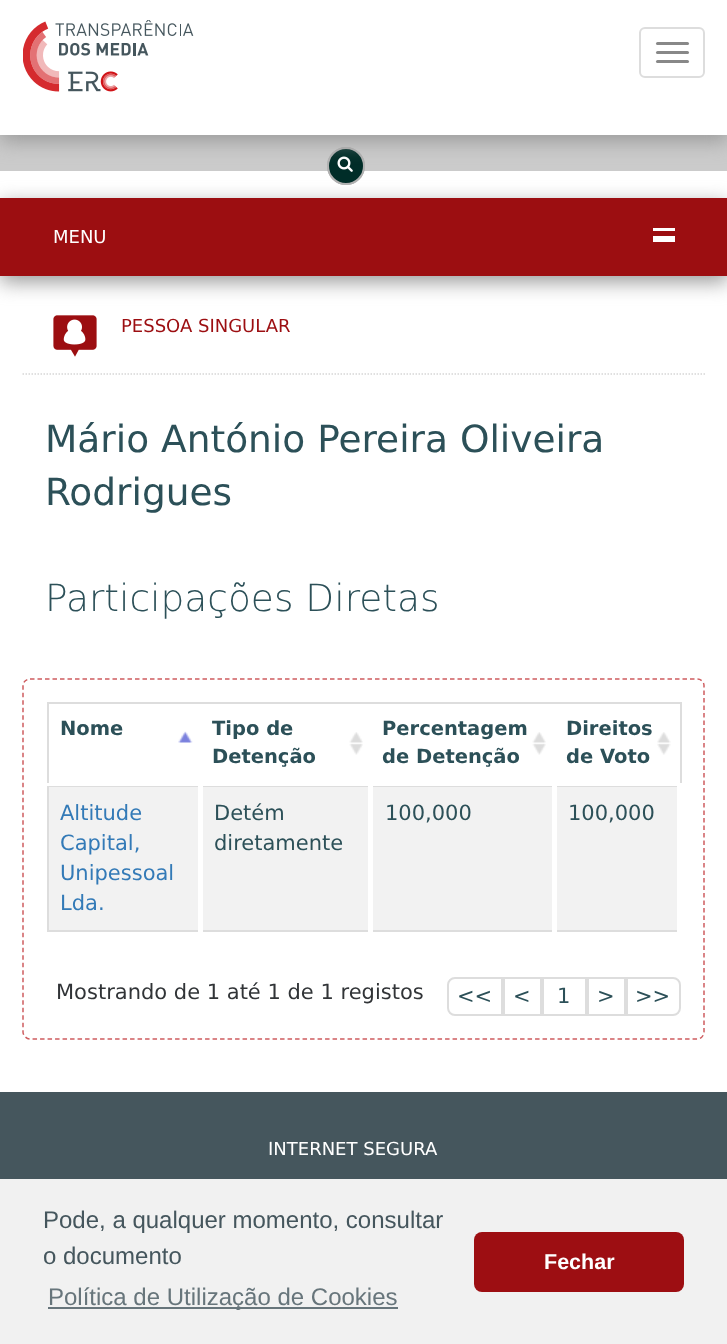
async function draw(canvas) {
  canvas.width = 727;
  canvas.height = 1344;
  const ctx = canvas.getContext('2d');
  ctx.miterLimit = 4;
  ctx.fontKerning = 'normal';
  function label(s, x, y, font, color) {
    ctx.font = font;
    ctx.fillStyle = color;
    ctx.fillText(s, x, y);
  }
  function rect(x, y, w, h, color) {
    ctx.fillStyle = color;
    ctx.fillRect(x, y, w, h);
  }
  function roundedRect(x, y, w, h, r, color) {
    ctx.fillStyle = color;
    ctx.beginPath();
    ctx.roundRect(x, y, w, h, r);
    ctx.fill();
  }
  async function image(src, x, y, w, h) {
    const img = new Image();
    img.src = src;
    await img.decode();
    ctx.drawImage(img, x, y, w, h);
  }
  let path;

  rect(0, 0, 727, 1344, '#fff');
  rect(0, 135, 727, 36, '#cbcbcb');
  ctx.fillStyle = '#999';
  ctx.filter = 'blur(10px)';
  ctx.beginPath();
  ctx.rect(0, 204, 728, 78);
  ctx.fill();
  ctx.filter = 'none';
  ctx.beginPath();
  ctx.arc(346, 166, 18, 0, 2 * Math.PI);
  ctx.strokeStyle = '#b1b1b1';
  ctx.lineWidth = 2;
  ctx.stroke();
  ctx.fillStyle = '#002d28';
  ctx.beginPath();
  ctx.arc(346, 166, 18, 0, 2 * Math.PI);
  ctx.fill();
  ctx.stroke();
  await image('assets/img2.png', 337, 156, 16, 16);
  ctx.fillStyle = '#999';
  ctx.filter = 'blur(10px)';
  ctx.beginPath();
  ctx.rect(0, 6, 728, 135);
  ctx.fill();
  ctx.filter = 'none';
  rect(0, 0, 727, 135, '#fff');
  await image('assets/img1.png', 23, 20, 171, 72);
  ctx.beginPath();
  ctx.roundRect(640, 28, 64, 49, 5);
  ctx.strokeStyle = '#ddd';
  ctx.stroke();
  roundedRect(656, 42, 33, 3, 1.5, '#888');
  roundedRect(656, 51, 33, 3, 1.5, '#888');
  roundedRect(656, 60, 33, 3, 1.5, '#888');
  rect(0, 198, 727, 78, '#9c0e11');
  label('MENU', 53, 243, '18px DejaVu Sans', '#fff');
  rect(653, 228, 22, 3, '#fff');
  rect(653, 236, 22, 6, '#fff');
  path = new Path2D('M22.5 374H705');
  ctx.strokeStyle = '#d6d6d6';
  ctx.lineWidth = 1.5;
  ctx.setLineDash([1.5, 1.5]);
  ctx.stroke(path);
  await image('assets/img3.png', 53, 315, 44, 42);
  label('PESSOA SINGULAR', 121, 332, '18px DejaVu Sans', '#9c0e11');
  label('Mário António Pereira Oliveira', 45, 452, '37.5px DejaVu Sans', '#2c5058');
  label('Rodrigues', 45, 505, '37.5px DejaVu Sans', '#2c5058');
  label('Participações Diretas', 45, 611, '200 37.5px DejaVu Sans', '#2c5058');
  path = new Path2D('M30 679H697.5C701 679 704 682 704 685.5V1032C704 1035.5 701 1039 697.5 1039H30C26.5 1039 23 1035.5 23 1032V685.5C23 682 26.5 679 30 679Z');
  ctx.strokeStyle = '#ce5c5f';
  ctx.setLineDash([4.5, 3]);
  ctx.stroke(path);
  rect(47, 702, 634, 2, '#ddd');
  rect(680, 702, 2, 81, '#ddd');
  rect(47, 930, 634, 2, '#ddd');
  rect(47, 702, 2, 230, '#ddd');
  await image('assets/img4.png', 178, 731, 15, 12);
  rect(47, 783, 2, 3, '#fff');
  label('Nome', 60, 735, 'bold 19.5px DejaVu Sans', '#2c5058');
  await image('assets/img5.png', 349, 732, 14, 23);
  label('Tipo de', 212, 735, 'bold 19.5px DejaVu Sans', '#2c5058');
  label('Detenção', 212, 763, 'bold 19.5px DejaVu Sans', '#2c5058');
  await image('assets/img6.png', 532, 732, 14, 23);
  label('Percentagem', 382, 735, 'bold 19.5px DejaVu Sans', '#2c5058');
  label('de Detenção', 382, 763, 'bold 19.5px DejaVu Sans', '#2c5058');
  await image('assets/img7.png', 657, 732, 14, 23);
  label('Direitos', 566, 735, 'bold 19.5px DejaVu Sans', '#2c5058');
  label('de Voto', 566, 763, 'bold 19.5px DejaVu Sans', '#2c5058');
  rect(49, 787, 628, 143, '#f2f2f2');
  rect(47, 786, 633, 1, '#ddd');
  rect(198, 783, 5, 150, '#fff');
  label('Altitude', 60, 820, '21px DejaVu Sans', '#337ab7');
  label('Capital,', 60, 850, '21px DejaVu Sans', '#337ab7');
  label('Unipessoal', 60, 880, '21px DejaVu Sans', '#337ab7');
  label('Lda.', 60, 910, '21px DejaVu Sans', '#337ab7');
  rect(368, 783, 5, 150, '#fff');
  label('Detém', 214, 820, '21px DejaVu Sans', '#2c5058');
  label('diretamente', 214, 850, '21px DejaVu Sans', '#2c5058');
  rect(552, 783, 5, 150, '#fff');
  label('100,000', 385, 820, '21px DejaVu Sans', '#2c5058');
  rect(677, 783, 4, 150, '#fff');
  label('100,000', 568, 820, '21px DejaVu Sans', '#2c5058');
  label('Mostrando de 1 até 1 de 1 registos', 56, 999, '21px DejaVu Sans', '#313437');
  ctx.beginPath();
  ctx.roundRect(448, 978, 54, 37, [7, 0, 0, 7]);
  ctx.strokeStyle = '#ddd';
  ctx.lineWidth = 2;
  ctx.setLineDash([]);
  ctx.stroke();
  label('<<', 457, 1003, '21px DejaVu Sans', '#2c5058');
  ctx.strokeRect(504, 978, 37, 37);
  label('<', 513, 1003, '21px DejaVu Sans', '#2c5058');
  ctx.strokeRect(543, 978, 43, 37);
  label('1', 557, 1003, '21px DejaVu Sans', '#2c5058');
  ctx.strokeRect(588, 978, 37, 37);
  label('>', 597, 1003, '21px DejaVu Sans', '#2c5058');
  ctx.beginPath();
  ctx.roundRect(627, 978, 53, 37, [0, 7, 7, 0]);
  ctx.stroke();
  label('>>', 635, 1003, '21px DejaVu Sans', '#2c5058');
  rect(0, 1092, 727, 87, '#45565d');
  label('INTERNET SEGURA', 268, 1155, '18px DejaVu Sans', '#fff');
  rect(0, 1179, 727, 165, '#f1f1f1');
  label('Pode, a qualquer momento, consultar', 43, 1228, '24px Liberation Sans', '#45565d');
  label('o documento', 43, 1264, '24px Liberation Sans', '#45565d');
  rect(48, 1307, 350, 2, '#67757b');
  label('Política de Utilização de Cookies', 48, 1305, '24px Liberation Sans', '#67757b');
  roundedRect(474, 1232, 210, 60, 8, '#9d0e12');
  label('Fechar', 544, 1269, 'bold 21.5px Liberation Sans', '#fff');
}

draw(document.querySelector('canvas'));
